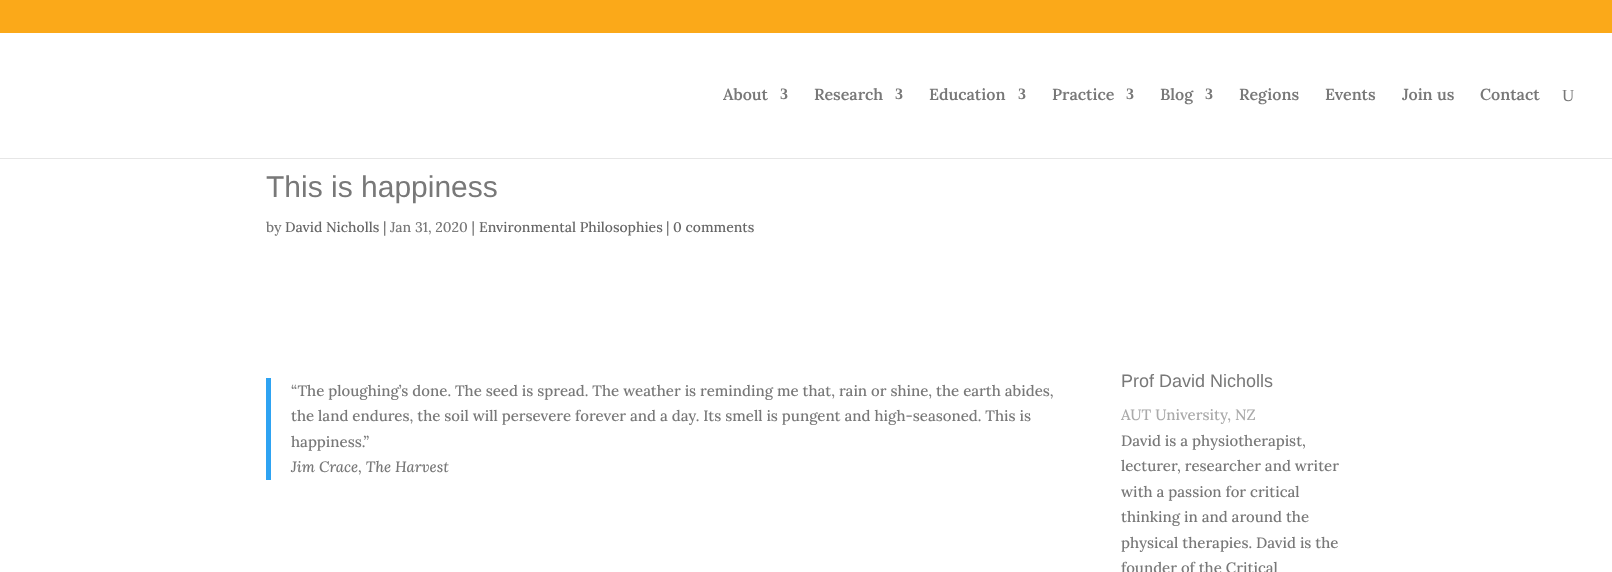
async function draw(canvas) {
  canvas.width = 1612;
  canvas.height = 572;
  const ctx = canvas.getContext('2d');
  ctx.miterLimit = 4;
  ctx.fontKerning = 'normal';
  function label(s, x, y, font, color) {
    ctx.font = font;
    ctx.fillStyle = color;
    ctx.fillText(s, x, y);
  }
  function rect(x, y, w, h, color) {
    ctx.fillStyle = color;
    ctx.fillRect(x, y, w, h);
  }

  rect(0, 0, 1612, 572, '#fff');
  rect(0, 0, 1612, 33, '#fba919');
  rect(0, 158, 1612, 1, '#e6e6e6');
  label('About', 723, 100, '600 16px Lora', '#787878');
  label('3', 780, 99, 'bold 16px Liberation Serif', '#787878');
  label('Research', 814, 100, '600 16px Lora', '#787878');
  label('3', 895, 99, 'bold 16px Liberation Serif', '#787878');
  label('Education', 929, 100, '600 16px Lora', '#787878');
  label('3', 1018, 99, 'bold 16px Liberation Serif', '#787878');
  label('Practice', 1052, 100, '600 16px Lora', '#787878');
  label('3', 1126, 99, 'bold 16px Liberation Serif', '#787878');
  label('Blog', 1160, 100, '600 16px Lora', '#787878');
  label('3', 1205, 99, 'bold 16px Liberation Serif', '#787878');
  label('Regions', 1239, 100, '600 16px Lora', '#787878');
  label('Events', 1325, 100, '600 16px Lora', '#787878');
  label('Join us', 1402, 100, '600 16px Lora', '#787878');
  label('Contact', 1480, 100, '600 16px Lora', '#787878');
  label('U', 1562, 101, '17px Liberation Serif', '#787878');
  label('This is happiness', 266, 197, '30px Liberation Sans', '#787878');
  label('by', 266, 232, '500 14px Lora', '#787878');
  label('David Nicholls', 285, 232, '500 14px Lora', '#666');
  label('| Jan 31, 2020 |', 383, 232, '500 14px Lora', '#787878');
  label('Environmental Philosophies', 479, 232, '500 14px Lora', '#666');
  label('|', 666, 232, '500 14px Lora', '#787878');
  label('0 comments', 673, 232, '500 14px Lora', '#666');
  rect(266, 378, 5, 102, '#2ea3f2');
  label('“The ploughing’s done. The seed is spread. The weather is reminding me that, rain or shine, the earth abides,', 291, 396, '500 15px Lora', '#787878');
  label('the land endures, the soil will persevere forever and a day. Its smell is pungent and high-seasoned. This is', 291, 421, '500 15px Lora', '#787878');
  label('happiness.”', 291, 447, '500 15px Lora', '#787878');
  label('Jim Crace, The Harvest', 291, 472, 'italic 500 15px Lora', '#787878');
  label('Prof David Nicholls', 1121, 387, '18px Liberation Sans', '#787878');
  label('AUT University, NZ', 1121, 420, '500 15px Lora', '#aaa');
  label('David is a physiotherapist,', 1121, 446, '500 15px Lora', '#787878');
  label('lecturer, researcher and writer', 1121, 471, '500 15px Lora', '#787878');
  label('with a passion for critical', 1121, 497, '500 15px Lora', '#787878');
  label('thinking in and around the', 1121, 522, '500 15px Lora', '#787878');
  label('physical therapies. David is the', 1121, 548, '500 15px Lora', '#787878');
  label('founder of the Critical', 1121, 573, '500 15px Lora', '#787878');
}

draw(document.querySelector('canvas'));
